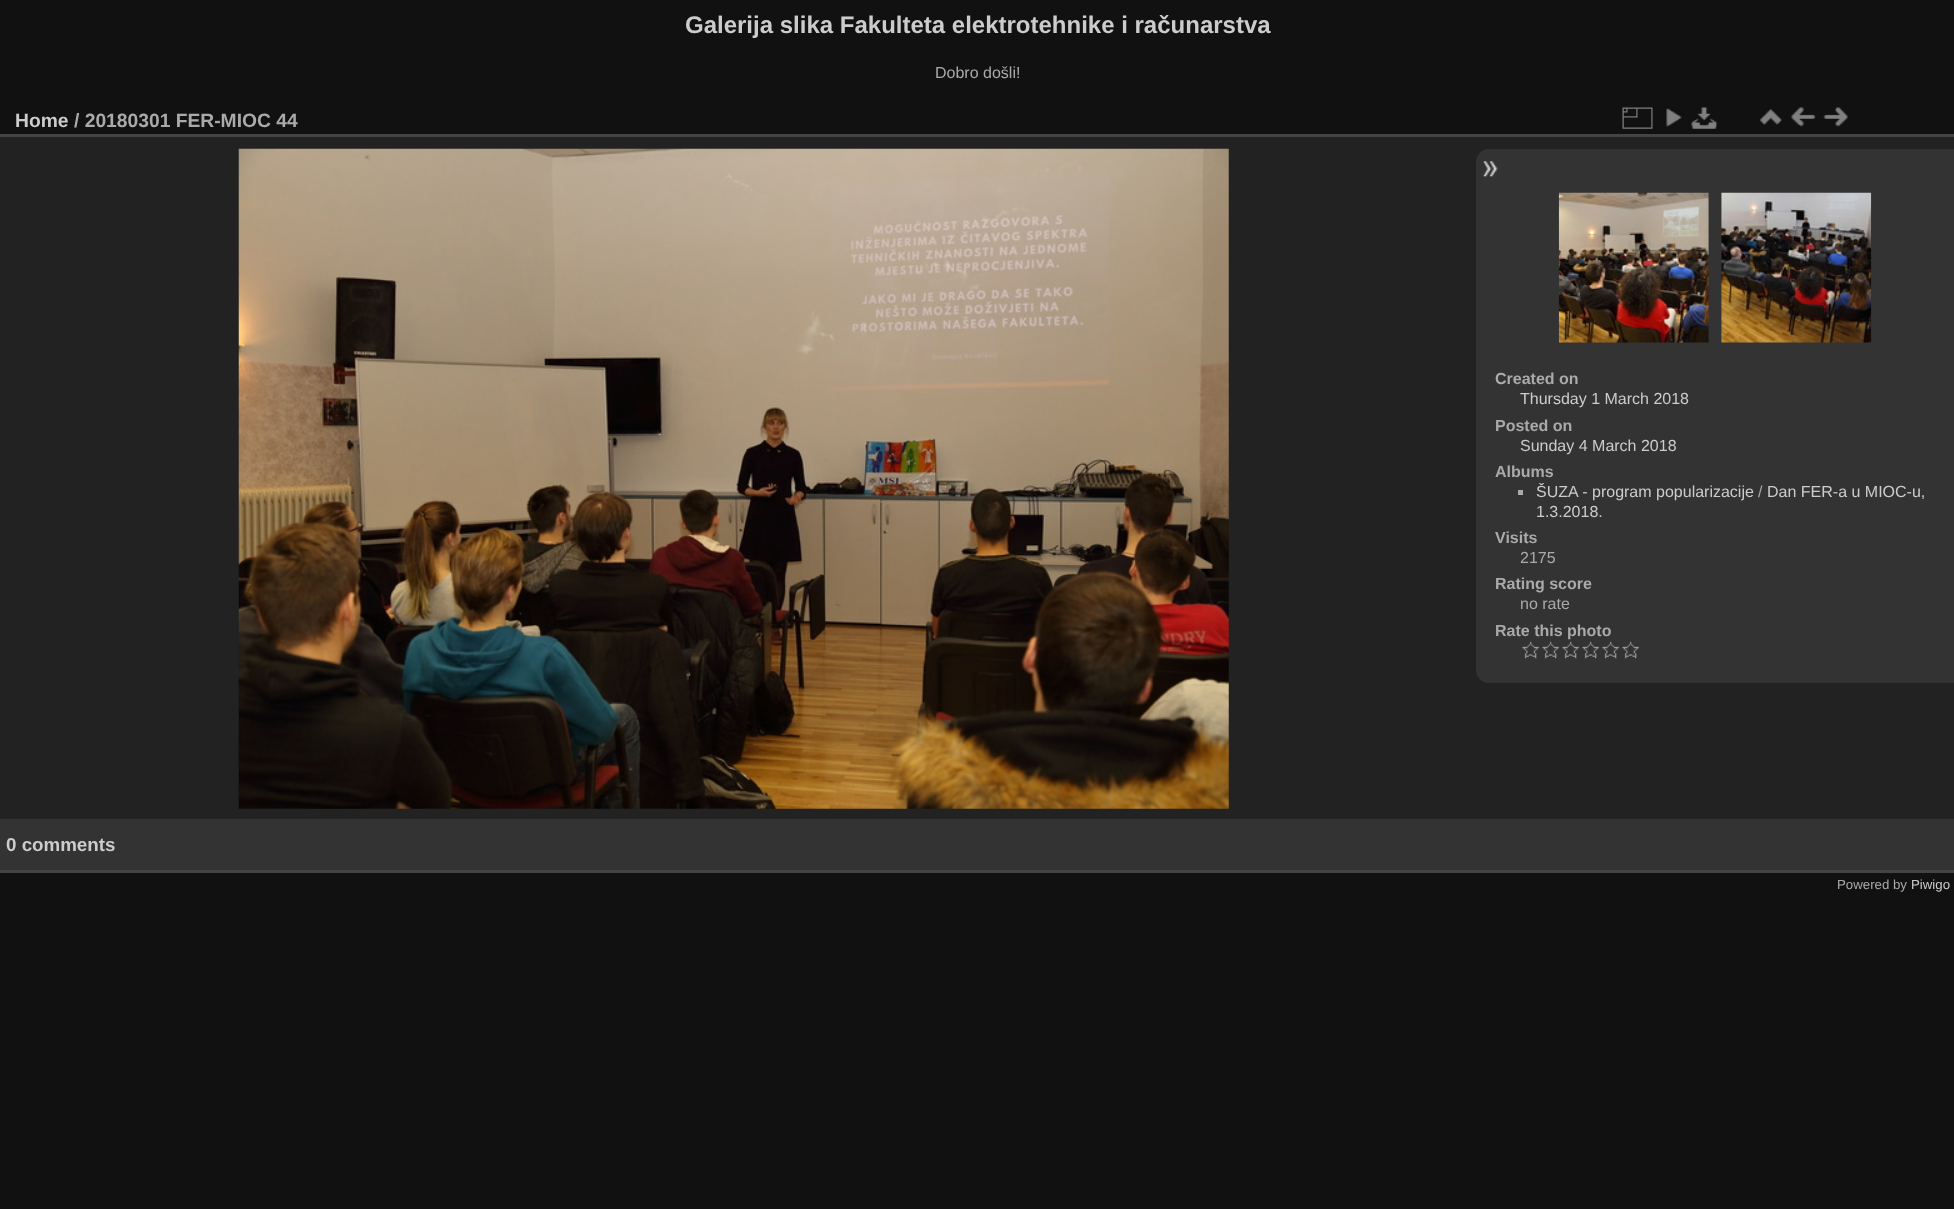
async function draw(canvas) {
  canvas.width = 1954;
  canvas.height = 1209;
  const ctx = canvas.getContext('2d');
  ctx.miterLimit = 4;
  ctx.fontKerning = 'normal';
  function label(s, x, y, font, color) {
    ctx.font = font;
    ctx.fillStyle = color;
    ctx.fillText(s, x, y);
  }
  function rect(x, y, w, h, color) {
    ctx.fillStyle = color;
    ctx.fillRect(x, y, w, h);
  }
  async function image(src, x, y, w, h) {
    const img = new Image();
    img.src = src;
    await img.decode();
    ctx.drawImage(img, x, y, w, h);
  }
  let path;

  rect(0, 0, 1954, 1209, '#111');
  label('Galerija slika Fakulteta elektrotehnike i računarstva', 685, 33, 'bold 24px Liberation Sans', '#ccc');
  label('Dobro došli!', 935, 78, '16px Liberation Sans', '#aaa');
  rect(0, 137, 1954, 682, '#222');
  rect(0, 870, 1954, 3, '#444');
  rect(0, 134, 1954, 3, '#444');
  label('Home', 15, 127, 'bold 19.25px Liberation Sans', '#ccc');
  label('/ 20180301 FER-MIOC 44', 74, 127, 'bold 19.25px Liberation Sans', '#aaa');
  await image('assets/img1.png', 1622, 107, 31, 22);
  await image('assets/img2.png', 1666, 108, 16, 19);
  await image('assets/img3.png', 1691, 107, 27, 22);
  await image('assets/img4.png', 1760, 108, 22, 18);
  await image('assets/img5.png', 1791, 107, 25, 20);
  await image('assets/img6.png', 1823, 107, 25, 20);
  await image('assets/img7.png', 238, 148, 991, 661);
  ctx.fillStyle = '#333';
  path = new Path2D('M1489 149H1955V683H1489C1482 683 1476 677 1476 670V162C1476 155 1482 149 1489 149Z');
  ctx.fill(path);
  await image('assets/img8.png', 1483, 161, 15, 16);
  await image('assets/img9.png', 1558, 192, 151, 151);
  await image('assets/img10.png', 1721, 192, 151, 151);
  label('Created on', 1495, 384, 'bold 16px Liberation Sans', '#aaa');
  label('Thursday 1 March 2018', 1520, 404, '16px Liberation Sans', '#ccc');
  label('Posted on', 1495, 431, 'bold 16px Liberation Sans', '#aaa');
  label('Sunday 4 March 2018', 1520, 451, '16px Liberation Sans', '#ccc');
  label('Albums', 1495, 477, 'bold 16px Liberation Sans', '#aaa');
  rect(1518, 490, 5, 5, '#aaa');
  label('ŠUZA - program popularizacije', 1536, 497, '16px Liberation Sans', '#ccc');
  label('/', 1758, 497, '16px Liberation Sans', '#aaa');
  label('Dan FER-a u MIOC-u,', 1767, 497, '16px Liberation Sans', '#ccc');
  label('1.3.2018.', 1536, 517, '16px Liberation Sans', '#ccc');
  label('Visits', 1495, 543, 'bold 16px Liberation Sans', '#aaa');
  label('2175', 1520, 563, '16px Liberation Sans', '#aaa');
  label('Rating score', 1495, 589, 'bold 16px Liberation Sans', '#aaa');
  label('no rate', 1520, 609, '16px Liberation Sans', '#aaa');
  label('Rate this photo', 1495, 636, 'bold 16px Liberation Sans', '#aaa');
  await image('assets/img11.png', 1522, 641, 17, 18);
  await image('assets/img12.png', 1542, 641, 17, 18);
  await image('assets/img12.png', 1562, 641, 17, 18);
  await image('assets/img11.png', 1582, 641, 17, 18);
  await image('assets/img11.png', 1602, 641, 17, 18);
  await image('assets/img11.png', 1622, 641, 17, 18);
  rect(0, 819, 1954, 51, '#333');
  label('0 comments', 6, 851, 'bold 18.75px Liberation Sans', '#ccc');
  label('Powered by', 1837, 889, '13.25px Liberation Sans', '#aaa');
  label('Piwigo', 1911, 889, '13.25px Liberation Sans', '#ccc');
}

draw(document.querySelector('canvas'));
